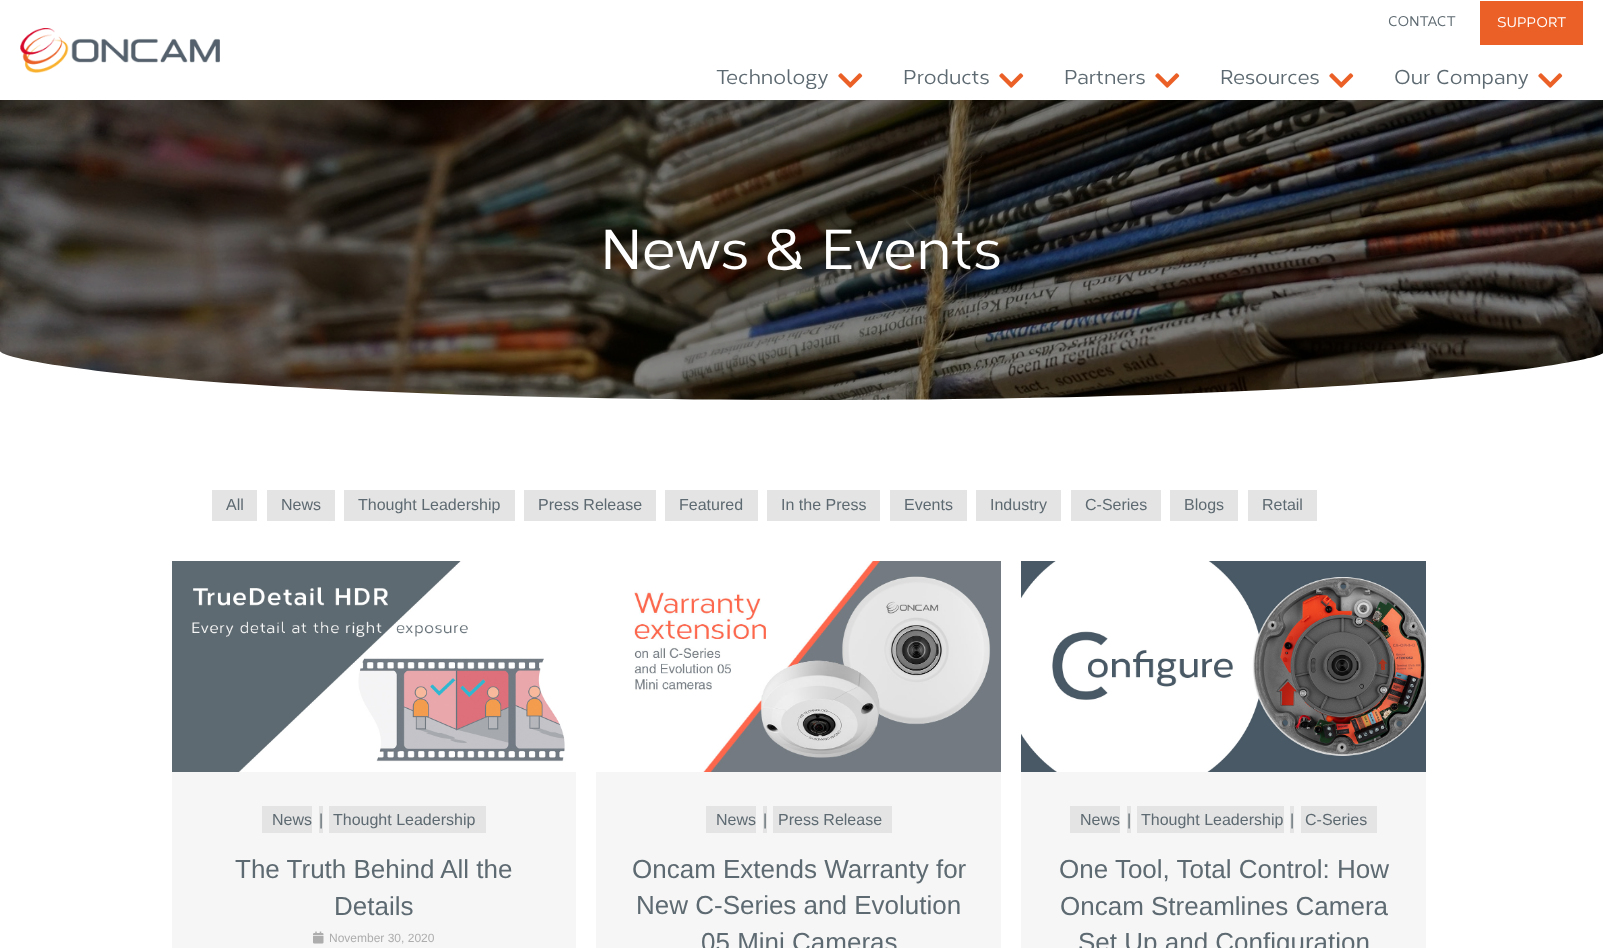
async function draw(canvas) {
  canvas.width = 1603;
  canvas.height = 948;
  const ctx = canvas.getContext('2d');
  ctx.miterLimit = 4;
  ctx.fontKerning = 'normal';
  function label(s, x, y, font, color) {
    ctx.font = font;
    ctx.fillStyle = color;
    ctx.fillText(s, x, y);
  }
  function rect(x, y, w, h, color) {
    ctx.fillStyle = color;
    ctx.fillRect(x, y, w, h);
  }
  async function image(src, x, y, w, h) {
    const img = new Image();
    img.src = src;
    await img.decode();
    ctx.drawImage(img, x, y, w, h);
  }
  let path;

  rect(0, 0, 1603, 948, '#fff');
  await image('assets/img1.png', 20, 28, 200, 45);
  label('CONTACT', 1388, 26, '500 14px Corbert', '#5e6a71');
  rect(1480, 1, 103, 44, '#ea6027');
  label('SUPPORT', 1497, 27, '500 14px Corbert', '#fff');
  label('Technology', 716, 84, '500 20px Corbert', '#5e6a71');
  await image('assets/img2.png', 838, 73, 25, 15);
  label('Products', 903, 84, '500 20px Corbert', '#5e6a71');
  await image('assets/img2.png', 999, 73, 25, 15);
  label('Partners', 1064, 84, '500 20px Corbert', '#5e6a71');
  await image('assets/img2.png', 1155, 73, 25, 15);
  label('Resources', 1220, 84, '500 20px Corbert', '#5e6a71');
  await image('assets/img2.png', 1329, 73, 25, 15);
  label('Our Company', 1394, 84, '500 20px Corbert', '#5e6a71');
  await image('assets/img2.png', 1538, 73, 25, 15);
  await image('assets/img3.png', 0, 100, 1603, 300);
  label('News & Events', 601, 269, '500 56px Corbert', '#fff');
  path = new Path2D('M802 400C203 399 1 361 0 351V401H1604V352C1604 361 1401 400 802 400Z');
  ctx.fill(path);
  rect(212, 490, 45, 31, '#e4e4e4');
  label('All', 226, 510, '16px Liberation Sans', '#5e6a71');
  rect(267, 490, 68, 31, '#e4e4e4');
  label('News', 281, 510, '16px Liberation Sans', '#5e6a71');
  rect(344, 490, 171, 31, '#e4e4e4');
  label('Thought Leadership', 358, 510, '16px Liberation Sans', '#5e6a71');
  rect(524, 490, 132, 31, '#e4e4e4');
  label('Press Release', 538, 510, '16px Liberation Sans', '#5e6a71');
  rect(665, 490, 93, 31, '#e4e4e4');
  label('Featured', 679, 510, '16px Liberation Sans', '#5e6a71');
  rect(767, 490, 113, 31, '#e4e4e4');
  label('In the Press', 781, 510, '16px Liberation Sans', '#5e6a71');
  rect(890, 490, 77, 31, '#e4e4e4');
  label('Events', 904, 510, '16px Liberation Sans', '#5e6a71');
  rect(976, 490, 85, 31, '#e4e4e4');
  label('Industry', 990, 510, '16px Liberation Sans', '#5e6a71');
  rect(1071, 490, 90, 31, '#e4e4e4');
  label('C-Series', 1085, 510, '16px Liberation Sans', '#5e6a71');
  rect(1170, 490, 68, 31, '#e4e4e4');
  label('Blogs', 1184, 510, '16px Liberation Sans', '#5e6a71');
  rect(1248, 490, 69, 31, '#e4e4e4');
  label('Retail', 1262, 510, '16px Liberation Sans', '#5e6a71');
  rect(172, 772, 404, 176, '#f6f6f6');
  await image('assets/img4.png', 172, 561, 404, 211);
  rect(262, 806, 50, 27, '#e4e4e4');
  label('News', 272, 825, '16px Liberation Sans', '#5e6a71');
  rect(319, 806, 4, 27, '#e4e4e4');
  label('|', 319, 825, '16px Liberation Sans', '#5e6a71');
  rect(329, 806, 157, 27, '#e4e4e4');
  label('Thought Leadership', 333, 825, '16px Liberation Sans', '#5e6a71');
  label('The Truth Behind All the', 235, 878, '26px Liberation Sans', '#5e6a71');
  label('Details', 334, 915, '26px Liberation Sans', '#5e6a71');
  await image('assets/img5.png', 313, 931, 11, 13);
  label('November 30, 2020', 329, 942, '12px Liberation Sans', '#adadad');
  rect(596, 772, 405, 176, '#f6f6f6');
  await image('assets/img6.png', 596, 561, 405, 211);
  rect(706, 806, 50, 27, '#e4e4e4');
  label('News', 716, 825, '16px Liberation Sans', '#5e6a71');
  rect(763, 806, 4, 27, '#e4e4e4');
  label('|', 763, 825, '16px Liberation Sans', '#5e6a71');
  rect(773, 806, 119, 27, '#e4e4e4');
  label('Press Release', 778, 825, '16px Liberation Sans', '#5e6a71');
  label('Oncam Extends Warranty for', 632, 878, '26px Liberation Sans', '#5e6a71');
  label('New C-Series and Evolution', 636, 914, '26px Liberation Sans', '#5e6a71');
  label('05 Mini Cameras', 701, 951, '26px Liberation Sans', '#5e6a71');
  rect(1021, 772, 405, 176, '#f6f6f6');
  await image('assets/img7.png', 1021, 561, 405, 211);
  rect(1070, 806, 50, 27, '#e4e4e4');
  label('News', 1080, 825, '16px Liberation Sans', '#5e6a71');
  rect(1127, 806, 4, 27, '#e4e4e4');
  label('|', 1127, 825, '16px Liberation Sans', '#5e6a71');
  rect(1137, 806, 147, 27, '#e4e4e4');
  label('Thought Leadership', 1141, 825, '16px Liberation Sans', '#5e6a71');
  rect(1290, 806, 4, 27, '#e4e4e4');
  label('|', 1290, 825, '16px Liberation Sans', '#5e6a71');
  rect(1301, 806, 76, 27, '#e4e4e4');
  label('C-Series', 1305, 825, '16px Liberation Sans', '#5e6a71');
  label('One Tool, Total Control: How', 1059, 878, '26px Liberation Sans', '#5e6a71');
  label('Oncam Streamlines Camera', 1060, 915, '26px Liberation Sans', '#5e6a71');
  label('Set Up and Configuration', 1078, 951, '26px Liberation Sans', '#5e6a71');
}

draw(document.querySelector('canvas'));
